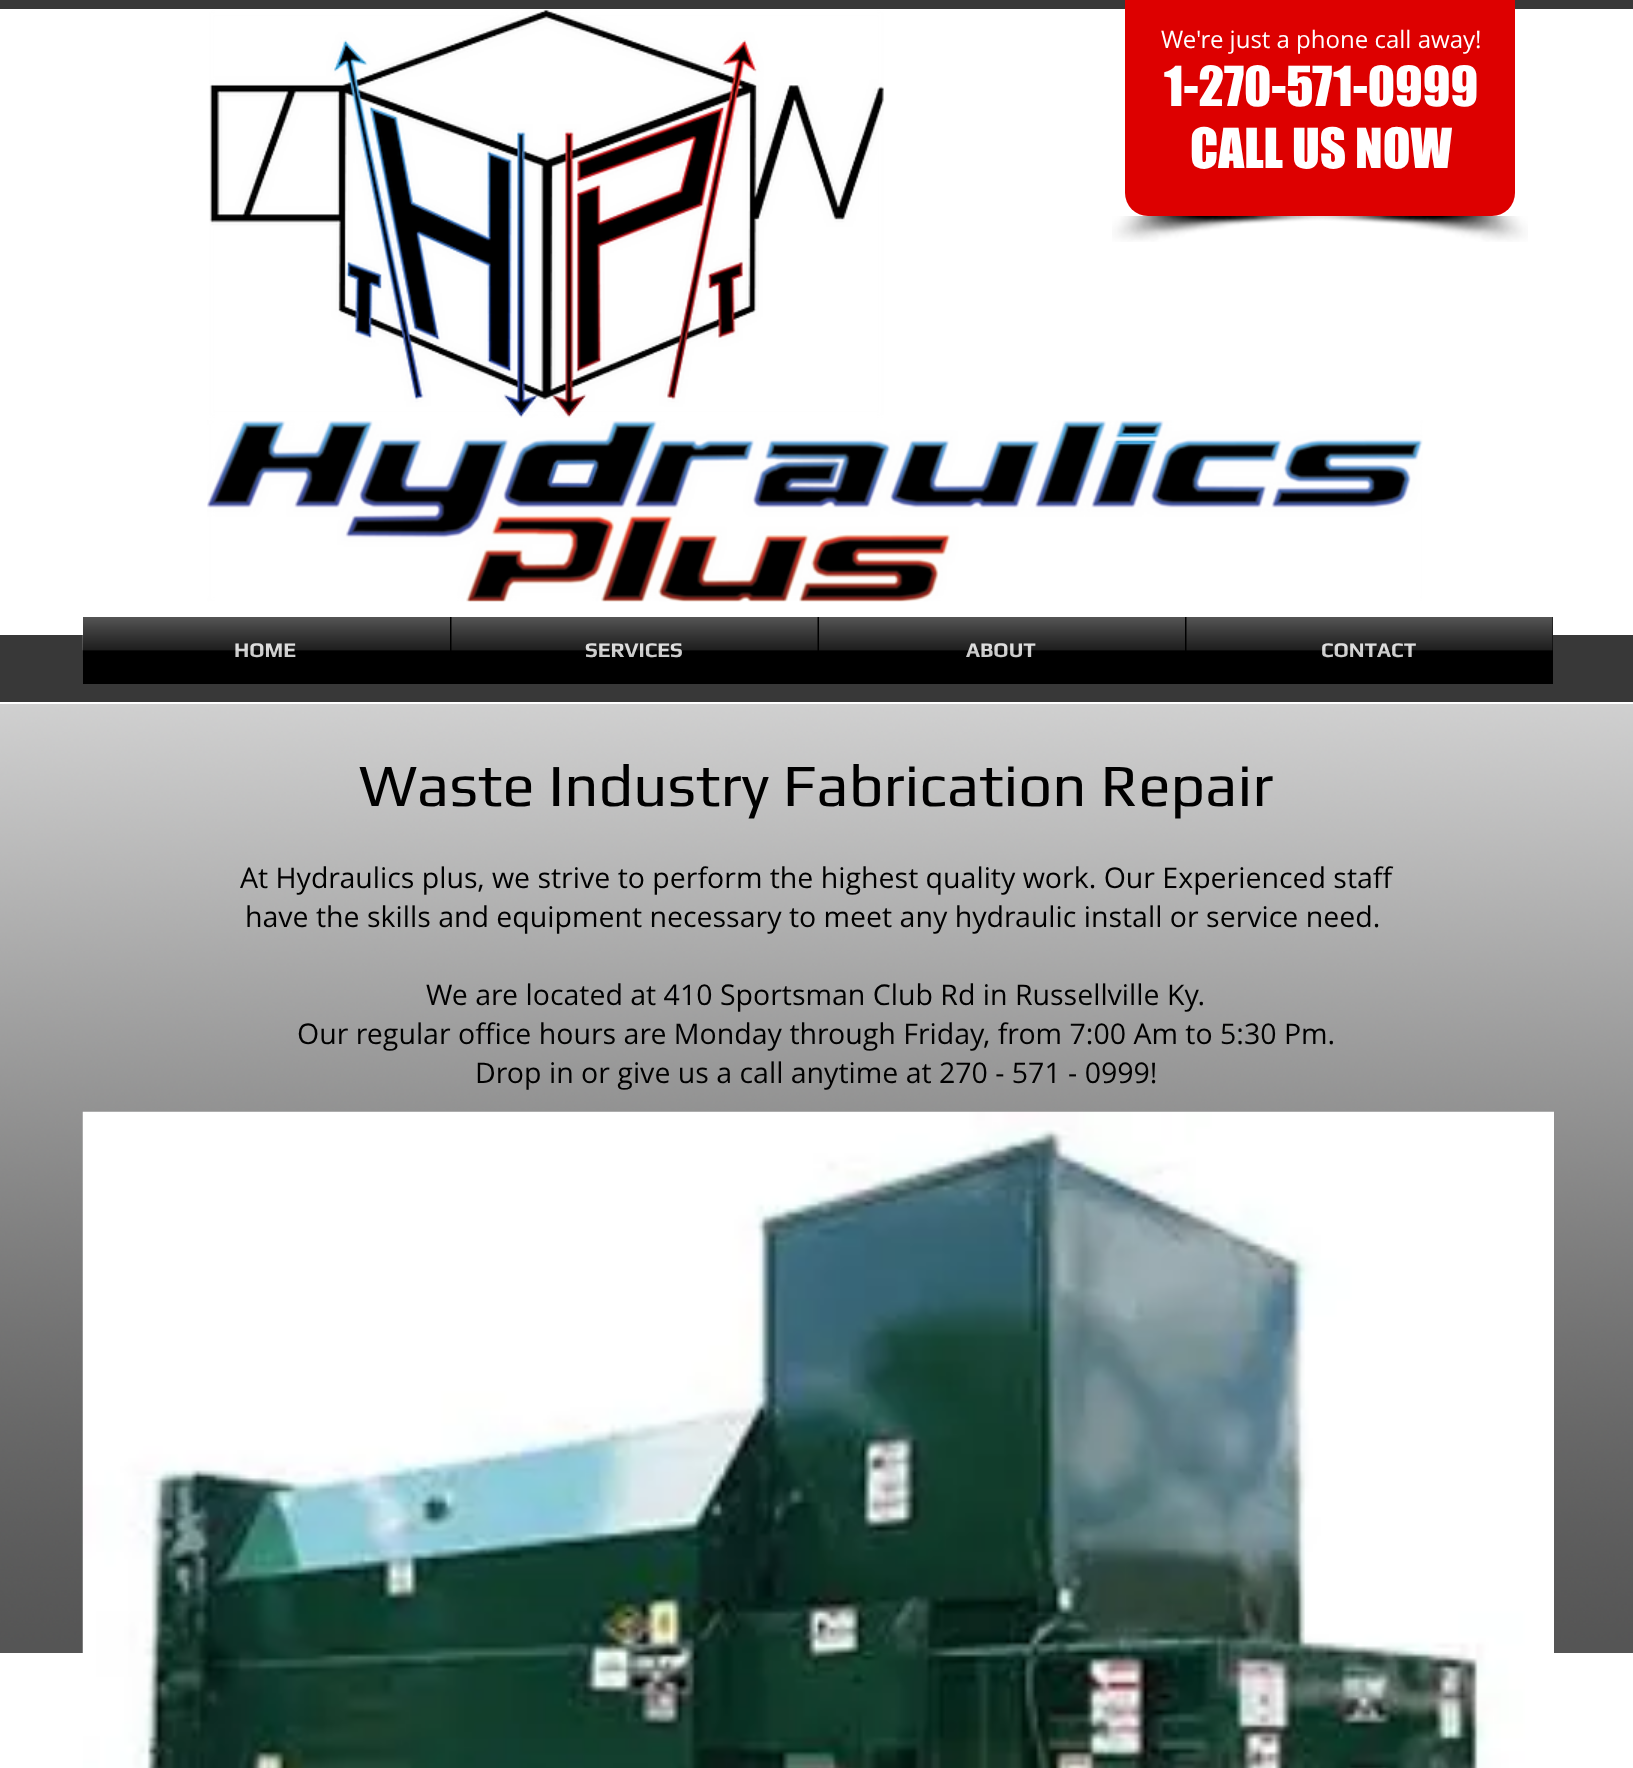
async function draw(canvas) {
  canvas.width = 1633;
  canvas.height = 1768;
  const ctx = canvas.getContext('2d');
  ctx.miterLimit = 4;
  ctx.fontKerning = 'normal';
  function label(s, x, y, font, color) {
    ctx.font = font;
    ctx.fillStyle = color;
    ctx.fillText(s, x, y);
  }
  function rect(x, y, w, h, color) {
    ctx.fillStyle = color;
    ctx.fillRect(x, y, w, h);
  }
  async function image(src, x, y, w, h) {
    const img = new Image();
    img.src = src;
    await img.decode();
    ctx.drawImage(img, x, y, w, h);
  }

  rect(0, 0, 1633, 1768, '#fff');
  rect(0, 0, 1633, 9, '#383838');
  await image('assets/img1.png', 209, 10, 675, 408);
  await image('assets/img2.png', 207, 420, 1216, 182);
  rect(0, 635, 1633, 67, '#383838');
  ctx.fillStyle = '#d00';
  ctx.beginPath();
  ctx.roundRect(1125, 0, 390, 216, [0, 0, 23, 23]);
  ctx.fill();
  label('We\'re just a phone call away!', 1161, 48, '24px Open Sans', '#fff');
  label('1-270-571-0999', 1164, 106, '51px "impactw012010"', '#fff');
  label('CALL US NOW', 1190, 168, '51px "impactw012010"', '#fff');
  await image('assets/img3.png', 1112, 216, 230, 26);
  await image('assets/img4.png', 1298, 216, 230, 26);
  await image('assets/img5.png', 82, 617, 1, 34);
  rect(83, 617, 1470, 67, '#000');
  label('HOME', 234, 657, 'bold 21px Play', '#d9d9d9');
  await image('assets/img6.png', 82, 617, 368, 40);
  label('SERVICES', 585, 657, 'bold 21px Play', '#d9d9d9');
  await image('assets/img7.png', 451, 617, 367, 40);
  label('ABOUT', 966, 657, 'bold 21px Play', '#d9d9d9');
  await image('assets/img8.png', 819, 617, 366, 40);
  label('CONTACT', 1321, 657, 'bold 21px Play', '#d9d9d9');
  await image('assets/img9.png', 1186, 617, 367, 40);
  await image('assets/img11.png', 0, 704, 1633, 949);
  label('Waste Industry Fabrication Repair', 359, 806, '60px Play', '#000');
  label('At Hydraulics plus, we strive to perform the highest quality work. Our Experienced staff', 240, 888, '28.5px Open Sans', '#000');
  label('have the skills and equipment necessary to meet any hydraulic install or service need.', 245, 927, '28.5px Open Sans', '#000');
  label('We are located at 410 Sportsman Club Rd in Russellville Ky.', 426, 1005, '28.5px Open Sans', '#000');
  label('Our regular office hours are Monday through Friday, from 7:00 Am to 5:30 Pm.', 297, 1044, '28.5px Open Sans', '#000');
  label('Drop in or give us a call anytime at 270 - 571 - 0999!', 475, 1083, '28.5px Open Sans', '#000');
  await image('assets/img10.png', 82, 1111, 1472, 657);
}

draw(document.querySelector('canvas'));
